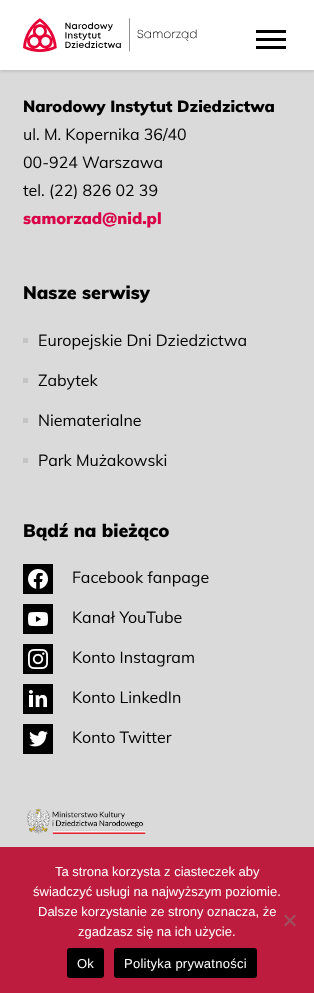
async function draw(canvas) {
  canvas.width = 314;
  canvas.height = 993;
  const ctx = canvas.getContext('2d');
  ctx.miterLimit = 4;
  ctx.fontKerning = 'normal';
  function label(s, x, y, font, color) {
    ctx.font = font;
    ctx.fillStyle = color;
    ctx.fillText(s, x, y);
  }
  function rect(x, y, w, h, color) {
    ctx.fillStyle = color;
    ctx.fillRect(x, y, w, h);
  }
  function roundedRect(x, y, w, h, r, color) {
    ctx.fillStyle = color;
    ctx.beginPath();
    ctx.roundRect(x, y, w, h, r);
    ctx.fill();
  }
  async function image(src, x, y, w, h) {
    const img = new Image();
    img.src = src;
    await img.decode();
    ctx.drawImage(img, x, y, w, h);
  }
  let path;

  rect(0, 0, 314, 993, '#dadada');
  ctx.fillStyle = '#0000001a';
  ctx.filter = 'blur(1px)';
  ctx.beginPath();
  ctx.rect(0, 2, 314, 70);
  ctx.fill();
  ctx.filter = 'none';
  rect(0, 0, 314, 70, '#fff');
  await image('assets/img1.png', 23, 18, 174, 34);
  rect(256, 30, 30, 3, '#000');
  rect(256, 38, 30, 3, '#000');
  rect(256, 46, 30, 3, '#000');
  label('Narodowy Instytut Dziedzictwa', 23, 112, '900 16px Mulish', '#000');
  label('ul. M. Kopernika 36/40', 23, 140, '16px Mulish', '#000');
  label('00-924 Warszawa', 23, 168, '16px Mulish', '#000');
  label('tel. (22) 826 02 39', 23, 196, '16px Mulish', '#000');
  label('samorzad@nid.pl', 23, 224, '900 16px Mulish', '#d90148');
  label('Nasze serwisy', 23, 299, '900 18px Mulish', '#000');
  rect(23, 338, 5, 5, '#c4c4c4');
  label('Europejskie Dni Dziedzictwa', 38, 346, '16px Mulish', '#000');
  rect(23, 378, 5, 5, '#c4c4c4');
  label('Zabytek', 38, 386, '16px Mulish', '#000');
  rect(23, 418, 5, 5, '#c4c4c4');
  label('Niematerialne', 38, 426, '16px Mulish', '#000');
  rect(23, 458, 5, 5, '#c4c4c4');
  label('Park Mużakowski', 38, 466, '16px Mulish', '#000');
  label('Bądź na bieżąco', 23, 537, '900 18px Mulish', '#000');
  await image('assets/img2.png', 23, 564, 30, 30);
  label('Facebook fanpage', 72, 583, '16px Mulish', '#000');
  await image('assets/img3.png', 23, 604, 30, 30);
  label('Kanał YouTube', 72, 623, '16px Mulish', '#000');
  await image('assets/img4.png', 23, 644, 30, 30);
  label('Konto Instagram', 72, 663, '16px Mulish', '#000');
  await image('assets/img5.png', 23, 684, 30, 30);
  label('Konto LinkedIn', 72, 703, '16px Mulish', '#000');
  await image('assets/img6.png', 23, 724, 30, 30);
  label('Konto Twitter', 72, 743, '16px Mulish', '#000');
  await image('assets/img7.png', 27, 808, 119, 26);
  rect(0, 847, 314, 146, '#be1c3e');
  label('Ta strona korzysta z ciasteczek aby', 55, 876, '13px Liberation Sans', '#fff');
  label('świadczyć usługi na najwyższym poziomie.', 33, 896, '13px Liberation Sans', '#fff');
  label('Dalsze korzystanie ze strony oznacza, że', 38, 916, '13px Liberation Sans', '#fff');
  label('zgadzasz się na ich użycie.', 78, 936, '13px Liberation Sans', '#fff');
  ctx.fillStyle = '#9f4e5f';
  path = new Path2D('M294.5 914.5L296 916L285.5 926.5L284 925Z');
  ctx.fill(path);
  path = new Path2D('M284 916L285.5 914.5L296 925L294.5 926.5Z');
  ctx.fill(path);
  roundedRect(67, 948, 37, 30, 3, '#000');
  ctx.letterSpacing = '0.25px';
  label('Ok', 77, 968, '13px Liberation Sans', '#fff');
  roundedRect(114, 948, 143, 30, 3, '#000');
  label('Polityka prywatności', 124, 968, '13px Liberation Sans', '#fff');
}

draw(document.querySelector('canvas'));
